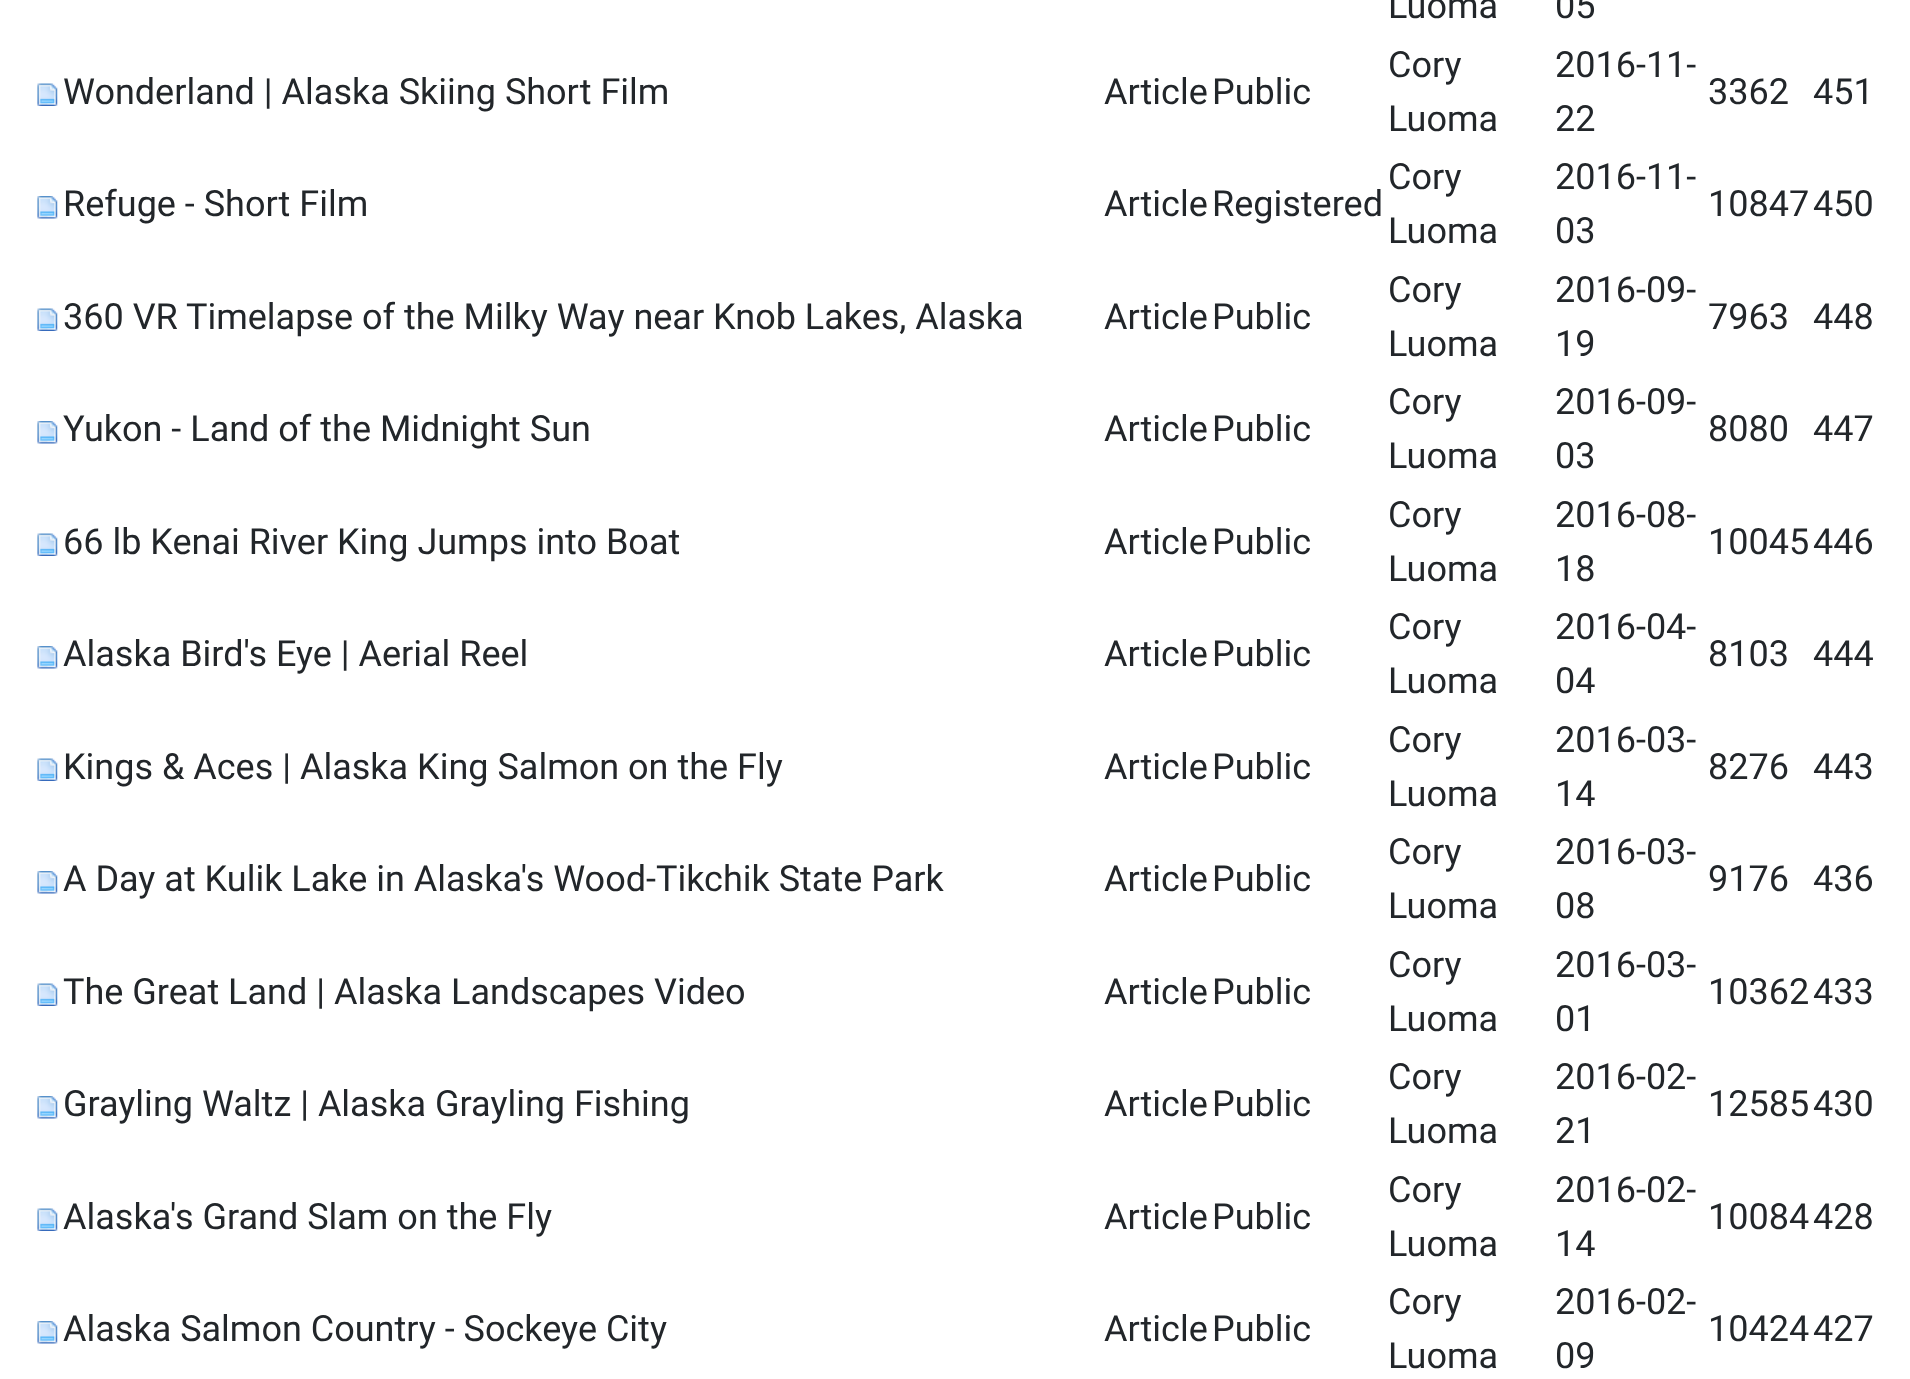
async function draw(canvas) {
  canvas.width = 1910;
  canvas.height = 1379;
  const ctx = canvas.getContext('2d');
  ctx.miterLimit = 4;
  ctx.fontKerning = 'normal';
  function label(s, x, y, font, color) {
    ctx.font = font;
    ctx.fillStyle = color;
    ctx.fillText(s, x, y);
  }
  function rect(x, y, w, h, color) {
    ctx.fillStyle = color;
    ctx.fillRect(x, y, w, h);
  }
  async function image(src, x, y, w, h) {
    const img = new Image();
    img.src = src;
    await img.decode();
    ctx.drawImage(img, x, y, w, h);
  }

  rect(0, 0, 1910, 1379, '#fff');
  label('Luoma', 1388, 18, '36px Roboto', '#22262a');
  label('05', 1555, 18, '36px Roboto', '#22262a');
  await image('assets/img1.png', 37, 83, 21, 23);
  label('Wonderland | Alaska Skiing Short Film', 63, 104, '36px Roboto', '#22262a');
  label('Article', 1104, 104, '36px Roboto', '#22262a');
  label('Public', 1212, 104, '36px Roboto', '#22262a');
  label('Cory', 1388, 77, '36px Roboto', '#22262a');
  label('Luoma', 1388, 131, '36px Roboto', '#22262a');
  label('2016-11-', 1555, 77, '36px Roboto', '#22262a');
  label('22', 1555, 131, '36px Roboto', '#22262a');
  label('3362', 1708, 104, '36px Roboto', '#22262a');
  label('451', 1813, 104, '36px Roboto', '#22262a');
  await image('assets/img2.png', 37, 196, 21, 23);
  label('Refuge - Short Film', 63, 216, '36px Roboto', '#22262a');
  label('Article', 1104, 216, '36px Roboto', '#22262a');
  label('Registered', 1212, 216, '36px Roboto', '#22262a');
  label('Cory', 1388, 189, '36px Roboto', '#22262a');
  label('Luoma', 1388, 243, '36px Roboto', '#22262a');
  label('2016-11-', 1555, 189, '36px Roboto', '#22262a');
  label('03', 1555, 243, '36px Roboto', '#22262a');
  label('10847', 1708, 216, '36px Roboto', '#22262a');
  label('450', 1813, 216, '36px Roboto', '#22262a');
  await image('assets/img1.png', 37, 308, 21, 23);
  label('360 VR Timelapse of the Milky Way near Knob Lakes, Alaska', 63, 329, '36px Roboto', '#22262a');
  label('Article', 1104, 329, '36px Roboto', '#22262a');
  label('Public', 1212, 329, '36px Roboto', '#22262a');
  label('Cory', 1388, 302, '36px Roboto', '#22262a');
  label('Luoma', 1388, 356, '36px Roboto', '#22262a');
  label('2016-09-', 1555, 302, '36px Roboto', '#22262a');
  label('19', 1555, 356, '36px Roboto', '#22262a');
  label('7963', 1708, 329, '36px Roboto', '#22262a');
  label('448', 1813, 329, '36px Roboto', '#22262a');
  await image('assets/img2.png', 37, 421, 21, 23);
  label('Yukon - Land of the Midnight Sun', 63, 441, '36px Roboto', '#22262a');
  label('Article', 1104, 441, '36px Roboto', '#22262a');
  label('Public', 1212, 441, '36px Roboto', '#22262a');
  label('Cory', 1388, 414, '36px Roboto', '#22262a');
  label('Luoma', 1388, 468, '36px Roboto', '#22262a');
  label('2016-09-', 1555, 414, '36px Roboto', '#22262a');
  label('03', 1555, 468, '36px Roboto', '#22262a');
  label('8080', 1708, 441, '36px Roboto', '#22262a');
  label('447', 1813, 441, '36px Roboto', '#22262a');
  await image('assets/img1.png', 37, 533, 21, 23);
  label('66 lb Kenai River King Jumps into Boat', 63, 554, '36px Roboto', '#22262a');
  label('Article', 1104, 554, '36px Roboto', '#22262a');
  label('Public', 1212, 554, '36px Roboto', '#22262a');
  label('Cory', 1388, 527, '36px Roboto', '#22262a');
  label('Luoma', 1388, 581, '36px Roboto', '#22262a');
  label('2016-08-', 1555, 527, '36px Roboto', '#22262a');
  label('18', 1555, 581, '36px Roboto', '#22262a');
  label('10045', 1708, 554, '36px Roboto', '#22262a');
  label('446', 1813, 554, '36px Roboto', '#22262a');
  await image('assets/img2.png', 37, 646, 21, 23);
  label('Alaska Bird\'s Eye | Aerial Reel', 63, 666, '36px Roboto', '#22262a');
  label('Article', 1104, 666, '36px Roboto', '#22262a');
  label('Public', 1212, 666, '36px Roboto', '#22262a');
  label('Cory', 1388, 639, '36px Roboto', '#22262a');
  label('Luoma', 1388, 693, '36px Roboto', '#22262a');
  label('2016-04-', 1555, 639, '36px Roboto', '#22262a');
  label('04', 1555, 693, '36px Roboto', '#22262a');
  label('8103', 1708, 666, '36px Roboto', '#22262a');
  label('444', 1813, 666, '36px Roboto', '#22262a');
  await image('assets/img1.png', 37, 758, 21, 23);
  label('Kings & Aces | Alaska King Salmon on the Fly', 63, 779, '36px Roboto', '#22262a');
  label('Article', 1104, 779, '36px Roboto', '#22262a');
  label('Public', 1212, 779, '36px Roboto', '#22262a');
  label('Cory', 1388, 752, '36px Roboto', '#22262a');
  label('Luoma', 1388, 806, '36px Roboto', '#22262a');
  label('2016-03-', 1555, 752, '36px Roboto', '#22262a');
  label('14', 1555, 806, '36px Roboto', '#22262a');
  label('8276', 1708, 779, '36px Roboto', '#22262a');
  label('443', 1813, 779, '36px Roboto', '#22262a');
  await image('assets/img2.png', 37, 871, 21, 23);
  label('A Day at Kulik Lake in Alaska\'s Wood-Tikchik State Park', 63, 891, '36px Roboto', '#22262a');
  label('Article', 1104, 891, '36px Roboto', '#22262a');
  label('Public', 1212, 891, '36px Roboto', '#22262a');
  label('Cory', 1388, 864, '36px Roboto', '#22262a');
  label('Luoma', 1388, 918, '36px Roboto', '#22262a');
  label('2016-03-', 1555, 864, '36px Roboto', '#22262a');
  label('08', 1555, 918, '36px Roboto', '#22262a');
  label('9176', 1708, 891, '36px Roboto', '#22262a');
  label('436', 1813, 891, '36px Roboto', '#22262a');
  await image('assets/img1.png', 37, 983, 21, 23);
  label('The Great Land | Alaska Landscapes Video', 63, 1004, '36px Roboto', '#22262a');
  label('Article', 1104, 1004, '36px Roboto', '#22262a');
  label('Public', 1212, 1004, '36px Roboto', '#22262a');
  label('Cory', 1388, 977, '36px Roboto', '#22262a');
  label('Luoma', 1388, 1031, '36px Roboto', '#22262a');
  label('2016-03-', 1555, 977, '36px Roboto', '#22262a');
  label('01', 1555, 1031, '36px Roboto', '#22262a');
  label('10362', 1708, 1004, '36px Roboto', '#22262a');
  label('433', 1813, 1004, '36px Roboto', '#22262a');
  await image('assets/img2.png', 37, 1096, 21, 23);
  label('Grayling Waltz | Alaska Grayling Fishing', 63, 1116, '36px Roboto', '#22262a');
  label('Article', 1104, 1116, '36px Roboto', '#22262a');
  label('Public', 1212, 1116, '36px Roboto', '#22262a');
  label('Cory', 1388, 1089, '36px Roboto', '#22262a');
  label('Luoma', 1388, 1143, '36px Roboto', '#22262a');
  label('2016-02-', 1555, 1089, '36px Roboto', '#22262a');
  label('21', 1555, 1143, '36px Roboto', '#22262a');
  label('12585', 1708, 1116, '36px Roboto', '#22262a');
  label('430', 1813, 1116, '36px Roboto', '#22262a');
  await image('assets/img1.png', 37, 1208, 21, 23);
  label('Alaska\'s Grand Slam on the Fly', 63, 1229, '36px Roboto', '#22262a');
  label('Article', 1104, 1229, '36px Roboto', '#22262a');
  label('Public', 1212, 1229, '36px Roboto', '#22262a');
  label('Cory', 1388, 1202, '36px Roboto', '#22262a');
  label('Luoma', 1388, 1256, '36px Roboto', '#22262a');
  label('2016-02-', 1555, 1202, '36px Roboto', '#22262a');
  label('14', 1555, 1256, '36px Roboto', '#22262a');
  label('10084', 1708, 1229, '36px Roboto', '#22262a');
  label('428', 1813, 1229, '36px Roboto', '#22262a');
  await image('assets/img2.png', 37, 1321, 21, 23);
  label('Alaska Salmon Country - Sockeye City', 63, 1341, '36px Roboto', '#22262a');
  label('Article', 1104, 1341, '36px Roboto', '#22262a');
  label('Public', 1212, 1341, '36px Roboto', '#22262a');
  label('Cory', 1388, 1314, '36px Roboto', '#22262a');
  label('Luoma', 1388, 1368, '36px Roboto', '#22262a');
  label('2016-02-', 1555, 1314, '36px Roboto', '#22262a');
  label('09', 1555, 1368, '36px Roboto', '#22262a');
  label('10424', 1708, 1341, '36px Roboto', '#22262a');
  label('427', 1813, 1341, '36px Roboto', '#22262a');
}

draw(document.querySelector('canvas'));
